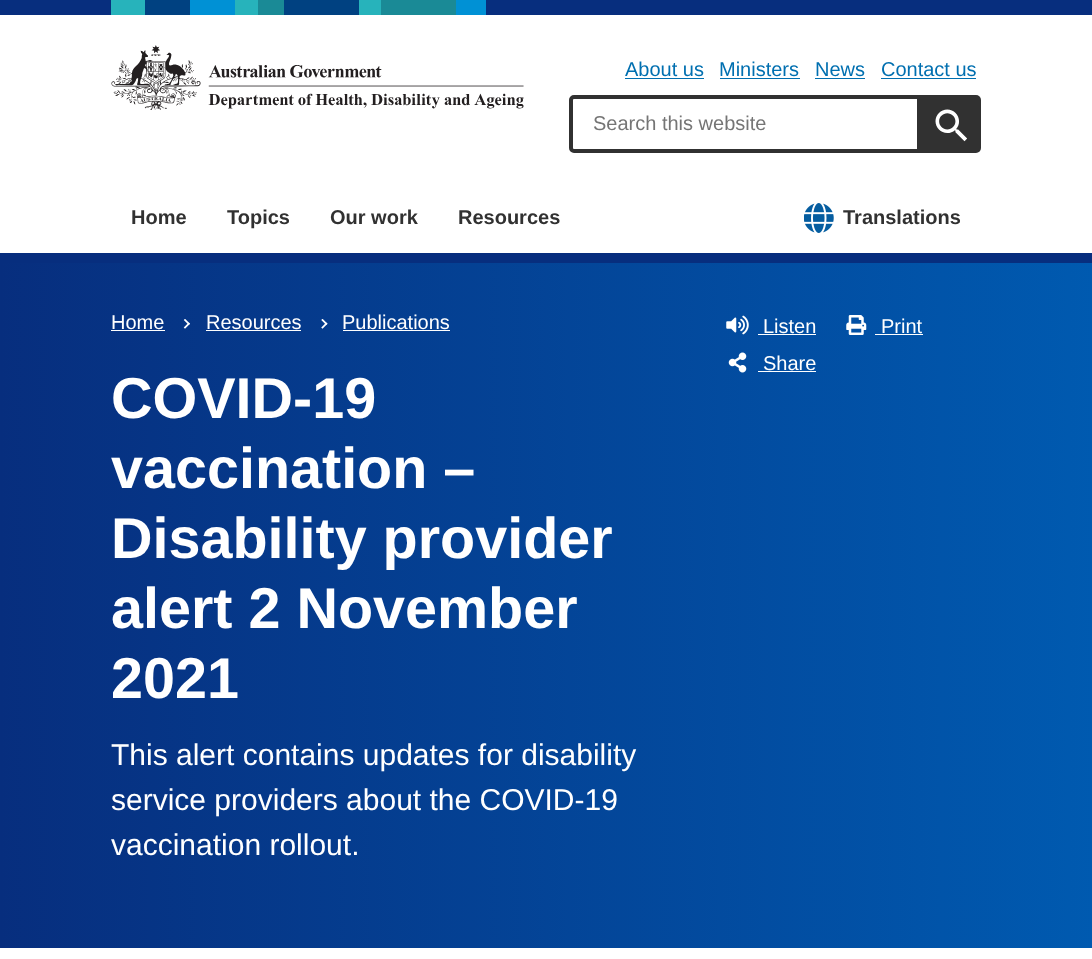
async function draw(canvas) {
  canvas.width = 1092;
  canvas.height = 959;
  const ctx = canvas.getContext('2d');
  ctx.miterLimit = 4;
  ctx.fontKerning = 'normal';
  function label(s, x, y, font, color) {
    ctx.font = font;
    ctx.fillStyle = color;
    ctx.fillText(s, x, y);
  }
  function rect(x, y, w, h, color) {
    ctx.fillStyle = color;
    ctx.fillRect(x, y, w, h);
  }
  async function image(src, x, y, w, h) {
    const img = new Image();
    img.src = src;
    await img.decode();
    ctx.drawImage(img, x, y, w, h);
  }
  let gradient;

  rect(0, 0, 1092, 959, '#fff');
  rect(0, 0, 1092, 15, '#072e7e');
  rect(111, 0, 34, 15, '#27b3bb');
  rect(145, 0, 45, 15, '#004181');
  rect(190, 0, 45, 15, '#0091d5');
  rect(235, 0, 23, 15, '#27b3bb');
  rect(258, 0, 26, 15, '#1a8a96');
  rect(284, 0, 75, 15, '#004181');
  rect(359, 0, 22, 15, '#27b3bb');
  rect(381, 0, 75, 15, '#1a8a96');
  rect(456, 0, 30, 15, '#0091d5');
  await image('assets/img1.png', 111, 45, 413, 65);
  label('About us', 625, 76, '20px Liberation Sans', '#006fb0');
  rect(625, 78, 79, 1, '#006fb0');
  label('Ministers', 719, 76, '20px Liberation Sans', '#006fb0');
  rect(720, 78, 80, 1, '#006fb0');
  label('News', 815, 76, '20px Liberation Sans', '#006fb0');
  rect(815, 78, 50, 1, '#006fb0');
  label('Contact us', 881, 76, '20px Liberation Sans', '#006fb0');
  rect(881, 78, 95, 1, '#006fb0');
  ctx.beginPath();
  ctx.roundRect(571, 97, 348, 54, [3, 0, 0, 3]);
  ctx.strokeStyle = '#313131';
  ctx.lineWidth = 4;
  ctx.stroke();
  label('Search this website', 593, 130, '20px Liberation Sans', '#757575');
  ctx.fillStyle = '#313131';
  ctx.beginPath();
  ctx.roundRect(921, 95, 60, 58, [0, 5, 5, 0]);
  ctx.fill();
  await image('assets/img2.png', 935, 109, 32, 33);
  rect(0, 253, 1092, 10, '#072e7e');
  label('Home', 131, 224, 'bold 20px Liberation Sans', '#313131');
  label('Topics', 227, 224, 'bold 20px Liberation Sans', '#313131');
  label('Our work', 330, 224, 'bold 20px Liberation Sans', '#313131');
  label('Resources', 458, 224, 'bold 20px Liberation Sans', '#313131');
  await image('assets/img3.png', 804, 203, 30, 30);
  label('Translations', 843, 224, 'bold 20px Liberation Sans', '#313131');
  gradient = ctx.createLinearGradient(0, 605, 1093, 605);
  gradient.addColorStop(0, '#072e7e');
  gradient.addColorStop(1, '#005ab0');
  ctx.fillStyle = gradient;
  ctx.fillRect(0, 263, 1092, 685);
  label('Home', 111, 329, '20px Liberation Sans', '#fff');
  rect(111, 330, 54, 1, '#fff');
  await image('assets/img4.png', 183, 319, 7, 10);
  label('Resources', 206, 329, '20px Liberation Sans', '#fff');
  rect(206, 330, 95, 1, '#fff');
  await image('assets/img5.png', 321, 319, 7, 10);
  label('Publications', 342, 329, '20px Liberation Sans', '#fff');
  rect(343, 330, 107, 1, '#fff');
  label('COVID-19', 111, 418, 'bold 57.5px Liberation Sans', '#fff');
  label('vaccination –', 111, 488, 'bold 57.5px Liberation Sans', '#fff');
  label('Disability provider', 111, 558, 'bold 57.5px Liberation Sans', '#fff');
  label('alert 2 November', 111, 628, 'bold 57.5px Liberation Sans', '#fff');
  label('2021', 111, 698, 'bold 57.5px Liberation Sans', '#fff');
  label('This alert contains updates for disability', 111, 765, '30px Liberation Sans', '#fff');
  label('service providers about the COVID-19', 111, 810, '30px Liberation Sans', '#fff');
  label('vaccination rollout.', 111, 855, '30px Liberation Sans', '#fff');
  await image('assets/img6.png', 726, 315, 23, 20);
  label('Listen', 763, 333, '20px Liberation Sans', '#fff');
  rect(758, 334, 58, 1, '#fff');
  await image('assets/img7.png', 846, 315, 21, 20);
  label('Print', 881, 333, '20px Liberation Sans', '#fff');
  rect(875, 334, 48, 1, '#fff');
  await image('assets/img8.png', 728, 352, 19, 21);
  label('Share', 763, 370, '20px Liberation Sans', '#fff');
  rect(758, 371, 58, 1, '#fff');
}

draw(document.querySelector('canvas'));
